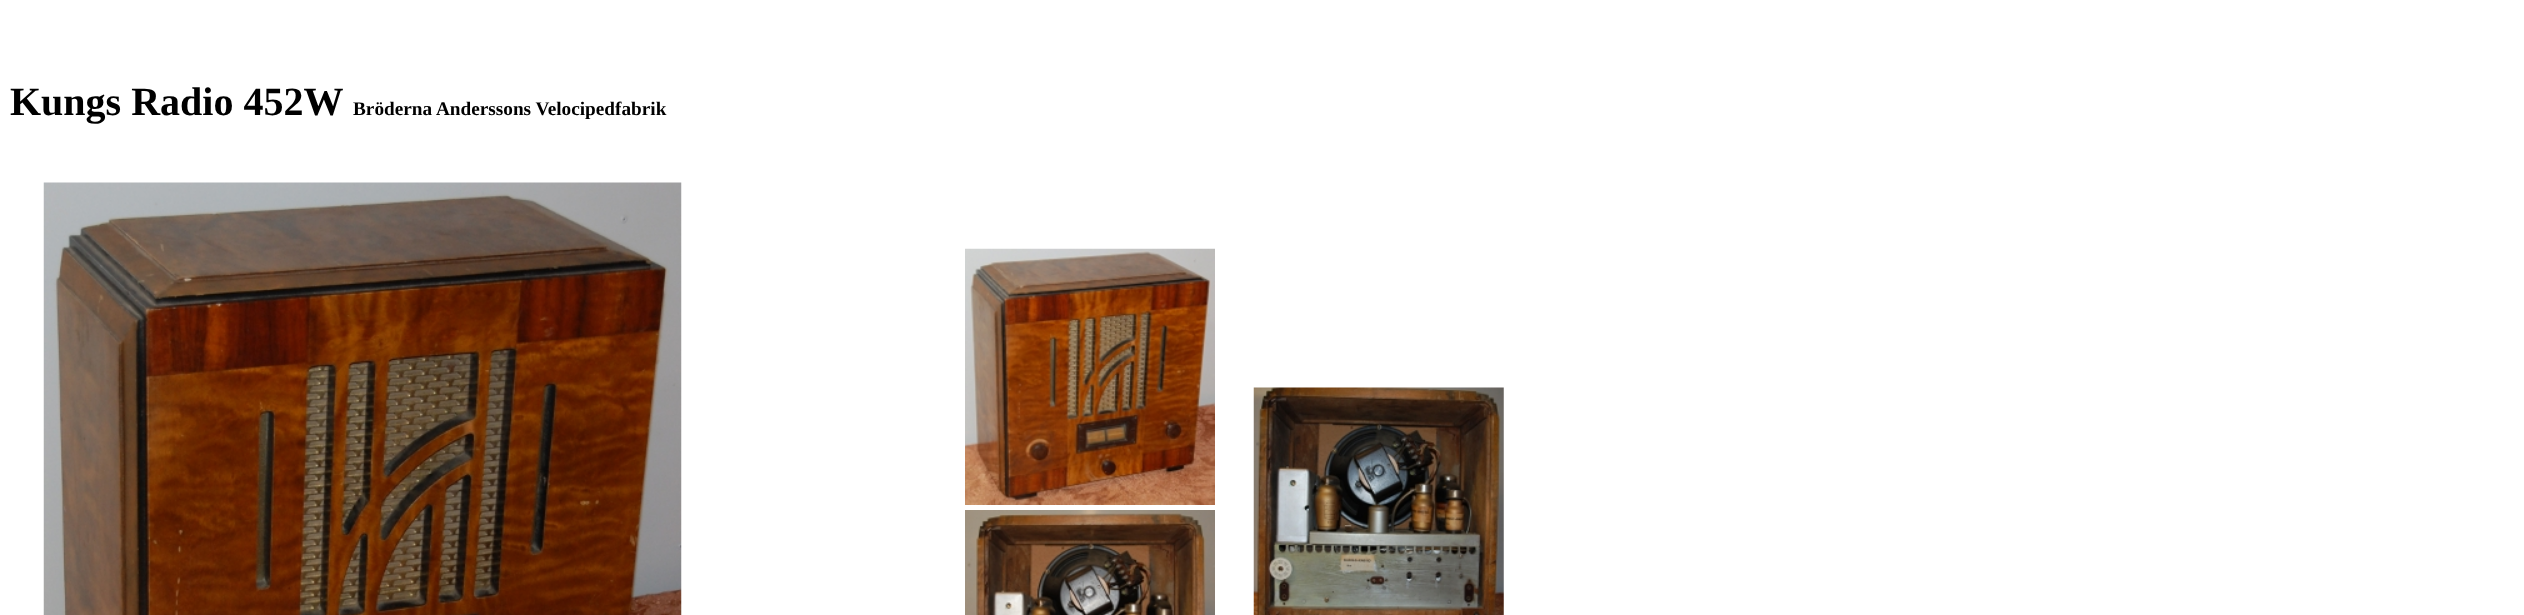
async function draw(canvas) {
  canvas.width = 2524;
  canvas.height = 615;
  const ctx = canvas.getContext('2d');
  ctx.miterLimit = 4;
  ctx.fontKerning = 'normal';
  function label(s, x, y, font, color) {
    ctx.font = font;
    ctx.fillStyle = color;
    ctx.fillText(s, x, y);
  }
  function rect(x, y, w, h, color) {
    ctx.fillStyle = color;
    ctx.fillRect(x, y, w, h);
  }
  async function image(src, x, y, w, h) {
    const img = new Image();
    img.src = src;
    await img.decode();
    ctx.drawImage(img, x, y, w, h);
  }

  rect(0, 0, 2524, 615, '#fff');
  label('Kungs Radio 452W', 10, 115, 'bold 40px Liberation Serif', '#000');
  label('Bröderna Anderssons Velocipedfabrik', 353, 115, 'bold 19.25px Liberation Serif', '#000');
  await image('assets/img1.png', 43, 182, 639, 433);
  await image('assets/img2.png', 965, 248, 250, 257);
  await image('assets/img3.png', 965, 510, 250, 105);
  await image('assets/img4.png', 1253, 387, 251, 228);
}

draw(document.querySelector('canvas'));
